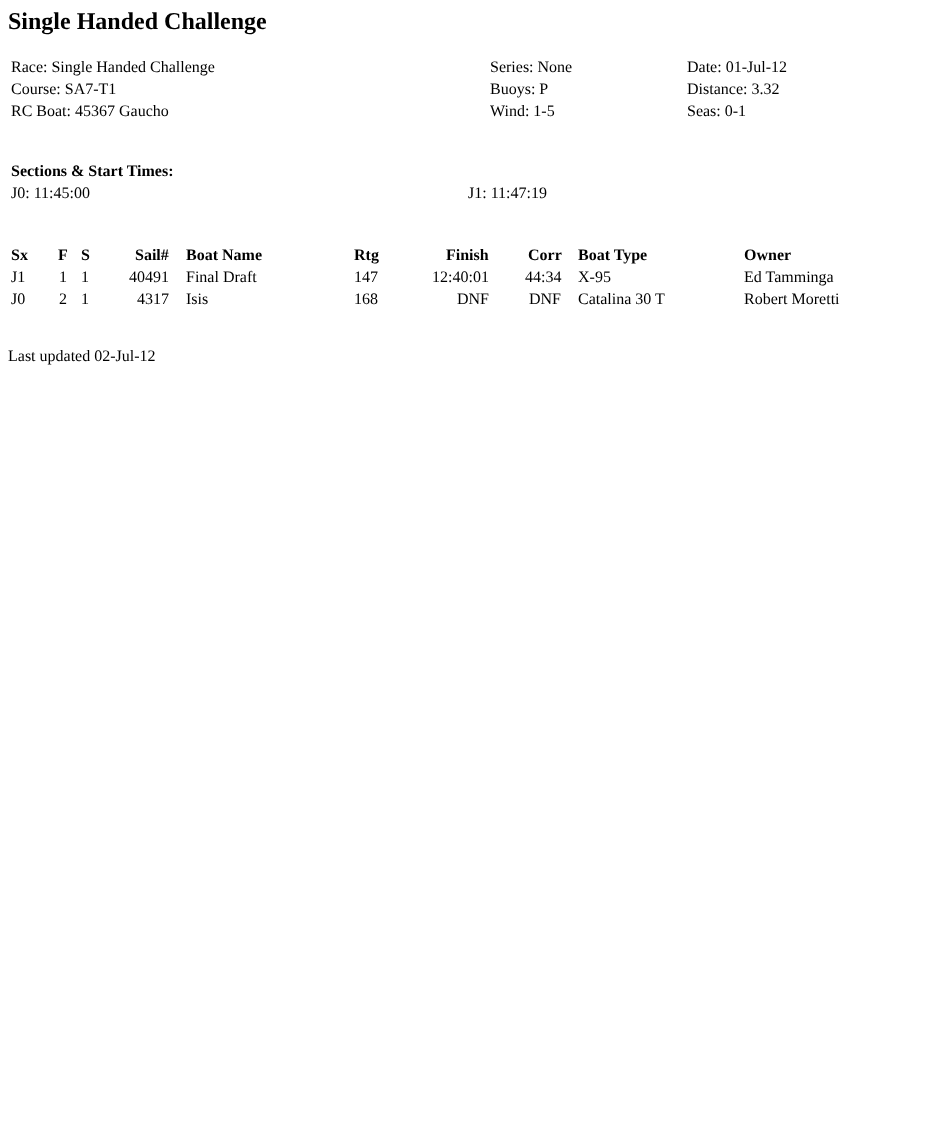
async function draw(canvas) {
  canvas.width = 932;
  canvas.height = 1125;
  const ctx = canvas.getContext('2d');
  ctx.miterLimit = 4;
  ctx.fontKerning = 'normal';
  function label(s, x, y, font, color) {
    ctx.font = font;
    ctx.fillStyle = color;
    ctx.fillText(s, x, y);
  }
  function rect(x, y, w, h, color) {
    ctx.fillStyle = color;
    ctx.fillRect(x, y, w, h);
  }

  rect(0, 0, 932, 1125, '#fff');
  label('Single Handed Challenge', 8, 29, 'bold 24px Liberation Serif', '#000');
  label('Race: Single Handed Challenge', 11, 72, '16px Liberation Serif', '#000');
  label('Series: None', 490, 72, '16px Liberation Serif', '#000');
  label('Date: 01-Jul-12', 687, 72, '16px Liberation Serif', '#000');
  label('Course: SA7-T1', 11, 94, '16px Liberation Serif', '#000');
  label('Buoys: P', 490, 94, '16px Liberation Serif', '#000');
  label('Distance: 3.32', 687, 94, '16px Liberation Serif', '#000');
  label('RC Boat: 45367 Gaucho', 11, 116, '16px Liberation Serif', '#000');
  label('Wind: 1-5', 490, 116, '16px Liberation Serif', '#000');
  label('Seas: 0-1', 687, 116, '16px Liberation Serif', '#000');
  label('Sections & Start Times:', 11, 176, 'bold 16px Liberation Serif', '#000');
  label('J0: 11:45:00', 11, 198, '16px Liberation Serif', '#000');
  label('J1: 11:47:19', 468, 198, '16px Liberation Serif', '#000');
  label('Sx', 11, 260, 'bold 16px Liberation Serif', '#000');
  label('F', 58, 260, 'bold 16px Liberation Serif', '#000');
  label('S', 81, 260, 'bold 16px Liberation Serif', '#000');
  label('Sail#', 135, 260, 'bold 16px Liberation Serif', '#000');
  label('Boat Name', 186, 260, 'bold 16px Liberation Serif', '#000');
  label('Rtg', 354, 260, 'bold 16px Liberation Serif', '#000');
  label('Finish', 446, 260, 'bold 16px Liberation Serif', '#000');
  label('Corr', 528, 260, 'bold 16px Liberation Serif', '#000');
  label('Boat Type', 578, 260, 'bold 16px Liberation Serif', '#000');
  label('Owner', 744, 260, 'bold 16px Liberation Serif', '#000');
  label('J1', 11, 282, '16px Liberation Serif', '#000');
  label('1', 59, 282, '16px Liberation Serif', '#000');
  label('1', 81, 282, '16px Liberation Serif', '#000');
  label('40491', 129, 282, '16px Liberation Serif', '#000');
  label('Final Draft', 186, 282, '16px Liberation Serif', '#000');
  label('147', 354, 282, '16px Liberation Serif', '#000');
  label('12:40:01', 432, 282, '16px Liberation Serif', '#000');
  label('44:34', 525, 282, '16px Liberation Serif', '#000');
  label('X-95', 578, 282, '16px Liberation Serif', '#000');
  label('Ed Tamminga', 744, 282, '16px Liberation Serif', '#000');
  label('J0', 11, 304, '16px Liberation Serif', '#000');
  label('2', 59, 304, '16px Liberation Serif', '#000');
  label('1', 81, 304, '16px Liberation Serif', '#000');
  label('4317', 137, 304, '16px Liberation Serif', '#000');
  label('Isis', 186, 304, '16px Liberation Serif', '#000');
  label('168', 354, 304, '16px Liberation Serif', '#000');
  label('DNF', 457, 304, '16px Liberation Serif', '#000');
  label('DNF', 529, 304, '16px Liberation Serif', '#000');
  label('Catalina 30 T', 578, 304, '16px Liberation Serif', '#000');
  label('Robert Moretti', 744, 304, '16px Liberation Serif', '#000');
  label('Last updated 02-Jul-12', 8, 361, '16px Liberation Serif', '#000');
}

draw(document.querySelector('canvas'));
